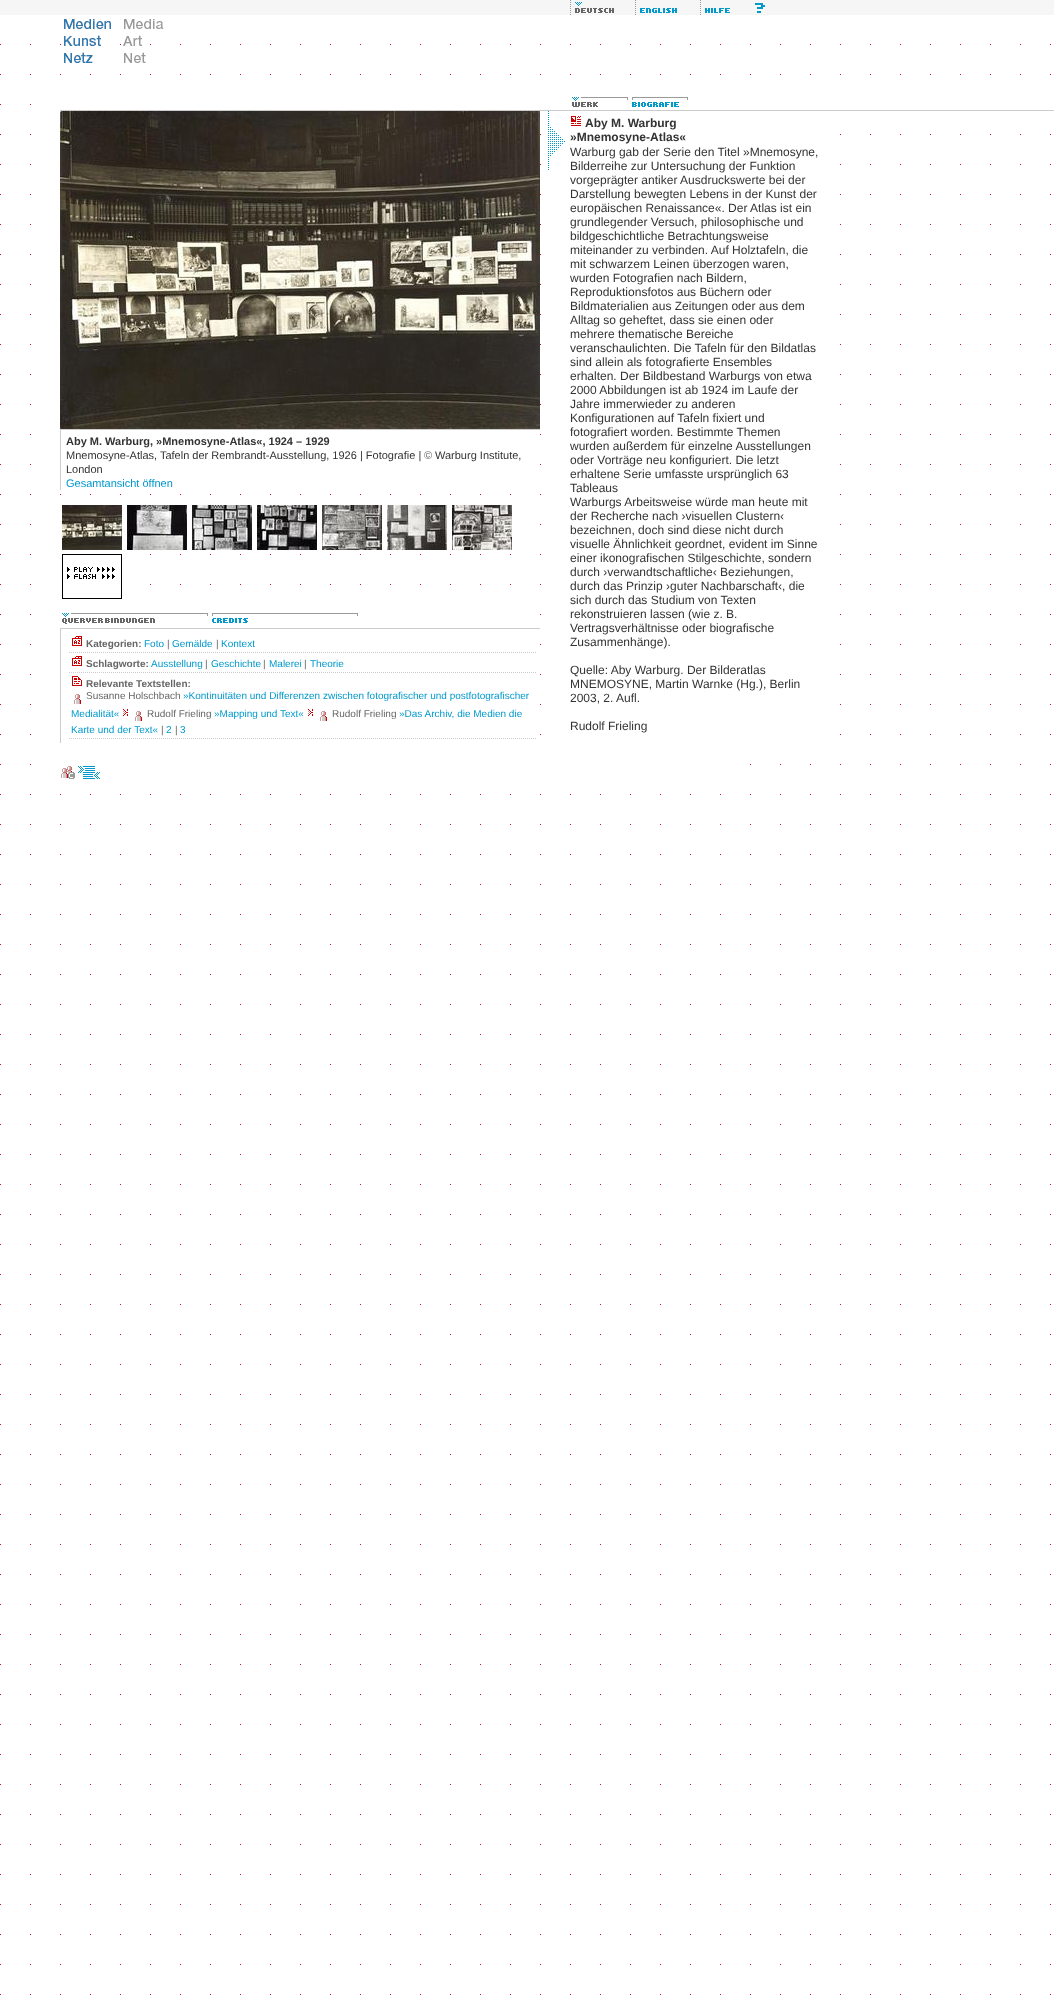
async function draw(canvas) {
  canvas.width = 1054;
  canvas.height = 2012;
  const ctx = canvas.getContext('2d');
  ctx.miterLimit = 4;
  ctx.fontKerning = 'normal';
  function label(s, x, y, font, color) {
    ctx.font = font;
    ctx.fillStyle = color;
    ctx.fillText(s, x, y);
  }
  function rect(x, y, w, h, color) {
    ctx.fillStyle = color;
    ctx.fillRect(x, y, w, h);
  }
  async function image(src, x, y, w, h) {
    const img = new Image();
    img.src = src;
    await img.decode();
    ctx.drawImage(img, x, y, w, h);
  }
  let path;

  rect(0, 0, 1054, 2012, '#fff');
  await image('assets/img1.png', 0, 44, 1051, 1951);
  rect(0, 0, 1054, 15, '#f6f6f6');
  await image('assets/img2.png', 570, 0, 44, 15);
  await image('assets/img3.png', 635, 0, 42, 15);
  await image('assets/img4.png', 700, 0, 65, 15);
  await image('assets/img5.png', 64, 19, 47, 44);
  await image('assets/img6.png', 123, 19, 41, 44);
  rect(60, 104, 991, 1, '#fff');
  rect(60, 110, 994, 1, '#ccc');
  await image('assets/img7.png', 572, 97, 56, 10);
  await image('assets/img8.png', 632, 97, 56, 10);
  await image('assets/img9.png', 548, 111, 17, 59);
  rect(90, 434, 421, 31, '#fff');
  rect(60, 429, 480, 1, '#ccc');
  await image('assets/img10.png', 60, 111, 480, 318);
  rect(60, 430, 1, 60, '#ccc');
  label('Aby M. Warburg, »Mnemosyne-Atlas«, 1924 – 1929', 66, 445, 'bold 11px Liberation Sans', '#333');
  label('Mnemosyne-Atlas, Tafeln der Rembrandt-Ausstellung, 1926 | Fotografie |', 66, 459, '11px Liberation Sans', '#333');
  label('©', 424, 459, '11px Liberation Sans', '#666');
  label('Warburg Institute,', 435, 459, '11px Liberation Sans', '#333');
  label('London', 66, 473, '11px Liberation Sans', '#333');
  label('Gesamtansicht öffnen', 66, 487, '11px Liberation Sans', '#09c');
  ctx.strokeStyle = '#fff';
  ctx.lineWidth = 2;
  ctx.strokeRect(61, 504, 62, 47);
  ctx.strokeRect(451, 504, 62, 47);
  await image('assets/img11.png', 62, 505, 60, 45);
  await image('assets/img12.png', 127, 505, 60, 45);
  await image('assets/img13.png', 192, 505, 60, 45);
  await image('assets/img14.png', 257, 505, 60, 45);
  await image('assets/img15.png', 322, 505, 60, 45);
  await image('assets/img16.png', 387, 505, 60, 45);
  await image('assets/img17.png', 452, 505, 60, 45);
  ctx.strokeRect(61, 553, 62, 47);
  await image('assets/img18.png', 62, 554, 60, 45);
  rect(60, 614, 451, 1, '#fff');
  await image('assets/img19.png', 62, 613, 146, 11);
  await image('assets/img20.png', 212, 613, 146, 10);
  rect(90, 644, 421, 91, '#fff');
  rect(60, 628, 480, 1, '#ccc');
  rect(60, 628, 1, 115, '#ccc');
  path = new Path2D('M69 652.5H536');
  ctx.strokeStyle = '#ccc';
  ctx.lineWidth = 1;
  ctx.setLineDash([1, 1]);
  ctx.stroke(path);
  await image('assets/img21.png', 72, 636, 10, 10);
  label('Kategorien:', 86, 647, 'bold 10px Liberation Sans', '#666');
  label('Foto', 144, 647, '10px Liberation Sans', '#09c');
  label('|', 167, 647, '10px Liberation Sans', '#666');
  label('Gemälde', 172, 647, '10px Liberation Sans', '#09c');
  label('|', 216, 647, '10px Liberation Sans', '#666');
  label('Kontext', 221, 647, '10px Liberation Sans', '#09c');
  path = new Path2D('M69 672.5H536');
  ctx.stroke(path);
  await image('assets/img21.png', 72, 656, 10, 10);
  label('Schlagworte:', 86, 667, 'bold 10px Liberation Sans', '#666');
  label('Ausstellung', 151, 667, '10px Liberation Sans', '#09c');
  label('|', 205, 667, '10px Liberation Sans', '#666');
  label('Geschichte', 211, 667, '10px Liberation Sans', '#09c');
  label('|', 263, 667, '10px Liberation Sans', '#666');
  label('Malerei', 269, 667, '10px Liberation Sans', '#09c');
  label('|', 304, 667, '10px Liberation Sans', '#666');
  label('Theorie', 310, 667, '10px Liberation Sans', '#09c');
  path = new Path2D('M69 738.5H536');
  ctx.stroke(path);
  await image('assets/img22.png', 72, 676, 10, 10);
  label('Relevante Textstellen:', 86, 687, 'bold 10px Liberation Sans', '#666');
  await image('assets/img23.png', 74, 694, 7, 10);
  label('Susanne Holschbach', 86, 699, '10px Liberation Sans', '#666');
  label('»Kontinuitäten und Differenzen zwischen fotografischer und postfotografischer', 183, 699, '10px Liberation Sans', '#09c');
  label('Medialität«', 71, 717, '10px Liberation Sans', '#09c');
  await image('assets/img24.png', 123, 709, 5, 7);
  await image('assets/img23.png', 135, 711, 7, 10);
  label('Rudolf Frieling', 147, 717, '10px Liberation Sans', '#666');
  label('»Mapping und Text«', 214, 717, '10px Liberation Sans', '#09c');
  await image('assets/img24.png', 308, 709, 5, 7);
  await image('assets/img23.png', 320, 711, 7, 10);
  label('Rudolf Frieling', 332, 717, '10px Liberation Sans', '#666');
  label('»Das Archiv, die Medien die', 399, 717, '10px Liberation Sans', '#09c');
  label('Karte und der Text«', 71, 733, '10px Liberation Sans', '#09c');
  label('|', 161, 733, '10px Liberation Sans', '#666');
  label('2', 166, 733, '10px Liberation Sans', '#09c');
  label('|', 175, 733, '10px Liberation Sans', '#666');
  label('3', 180, 733, '10px Liberation Sans', '#09c');
  rect(570, 134, 241, 601, '#fff');
  await image('assets/img25.png', 571, 116, 10, 10);
  label('Aby M. Warburg', 585, 127, 'bold 12px Liberation Sans', '#333');
  label('»Mnemosyne-Atlas«', 570, 141, 'bold 12px Liberation Sans', '#333');
  label('Warburg gab der Serie den Titel »Mnemosyne,', 570, 156, '12px Liberation Sans', '#333');
  label('Bilderreihe zur Untersuchung der Funktion', 570, 170, '12px Liberation Sans', '#333');
  label('vorgeprägter antiker Ausdruckswerte bei der', 570, 184, '12px Liberation Sans', '#333');
  label('Darstellung bewegten Lebens in der Kunst der', 570, 198, '12px Liberation Sans', '#333');
  label('europäischen Renaissance«. Der Atlas ist ein', 570, 212, '12px Liberation Sans', '#333');
  label('grundlegender Versuch, philosophische und', 570, 226, '12px Liberation Sans', '#333');
  label('bildgeschichtliche Betrachtungsweise', 570, 240, '12px Liberation Sans', '#333');
  label('miteinander zu verbinden. Auf Holztafeln, die', 570, 254, '12px Liberation Sans', '#333');
  label('mit schwarzem Leinen überzogen waren,', 570, 268, '12px Liberation Sans', '#333');
  label('wurden Fotografien nach Bildern,', 570, 282, '12px Liberation Sans', '#333');
  label('Reproduktionsfotos aus Büchern oder', 570, 296, '12px Liberation Sans', '#333');
  label('Bildmaterialien aus Zeitungen oder aus dem', 570, 310, '12px Liberation Sans', '#333');
  label('Alltag so geheftet, dass sie einen oder', 570, 324, '12px Liberation Sans', '#333');
  label('mehrere thematische Bereiche', 570, 338, '12px Liberation Sans', '#333');
  label('veranschaulichten. Die Tafeln für den Bildatlas', 570, 352, '12px Liberation Sans', '#333');
  label('sind allein als fotografierte Ensembles', 570, 366, '12px Liberation Sans', '#333');
  label('erhalten. Der Bildbestand Warburgs von etwa', 570, 380, '12px Liberation Sans', '#333');
  label('2000 Abbildungen ist ab 1924 im Laufe der', 570, 394, '12px Liberation Sans', '#333');
  label('Jahre immerwieder zu anderen', 570, 408, '12px Liberation Sans', '#333');
  label('Konfigurationen auf Tafeln fixiert und', 570, 422, '12px Liberation Sans', '#333');
  label('fotografiert worden. Bestimmte Themen', 570, 436, '12px Liberation Sans', '#333');
  label('wurden außerdem für einzelne Ausstellungen', 570, 450, '12px Liberation Sans', '#333');
  label('oder Vorträge neu konfiguriert. Die letzt', 570, 464, '12px Liberation Sans', '#333');
  label('erhaltene Serie umfasste ursprünglich 63', 570, 478, '12px Liberation Sans', '#333');
  label('Tableaus', 570, 492, '12px Liberation Sans', '#333');
  label('Warburgs Arbeitsweise würde man heute mit', 570, 506, '12px Liberation Sans', '#333');
  label('der Recherche nach ›visuellen Clustern‹', 570, 520, '12px Liberation Sans', '#333');
  label('bezeichnen, doch sind diese nicht durch', 570, 534, '12px Liberation Sans', '#333');
  label('visuelle Ähnlichkeit geordnet, evident im Sinne', 570, 548, '12px Liberation Sans', '#333');
  label('einer ikonografischen Stilgeschichte, sondern', 570, 562, '12px Liberation Sans', '#333');
  label('durch ›verwandtschaftliche‹ Beziehungen,', 570, 576, '12px Liberation Sans', '#333');
  label('durch das Prinzip ›guter Nachbarschaft‹, die', 570, 590, '12px Liberation Sans', '#333');
  label('sich durch das Studium von Texten', 570, 604, '12px Liberation Sans', '#333');
  label('rekonstruieren lassen (wie z. B.', 570, 618, '12px Liberation Sans', '#333');
  label('Vertragsverhältnisse oder biografische', 570, 632, '12px Liberation Sans', '#333');
  label('Zusammenhänge).', 570, 646, '12px Liberation Sans', '#333');
  label('Quelle: Aby Warburg. Der Bilderatlas', 570, 674, '12px Liberation Sans', '#333');
  label('MNEMOSYNE, Martin Warnke (Hg.), Berlin', 570, 688, '12px Liberation Sans', '#333');
  label('2003, 2. Aufl.', 570, 702, '12px Liberation Sans', '#333');
  label('Rudolf Frieling', 570, 730, '12px Liberation Sans', '#333');
  rect(60, 764, 661, 1, '#fff');
  await image('assets/img26.png', 61, 766, 14, 13);
  await image('assets/img27.png', 78, 766, 22, 13);
}

draw(document.querySelector('canvas'));
